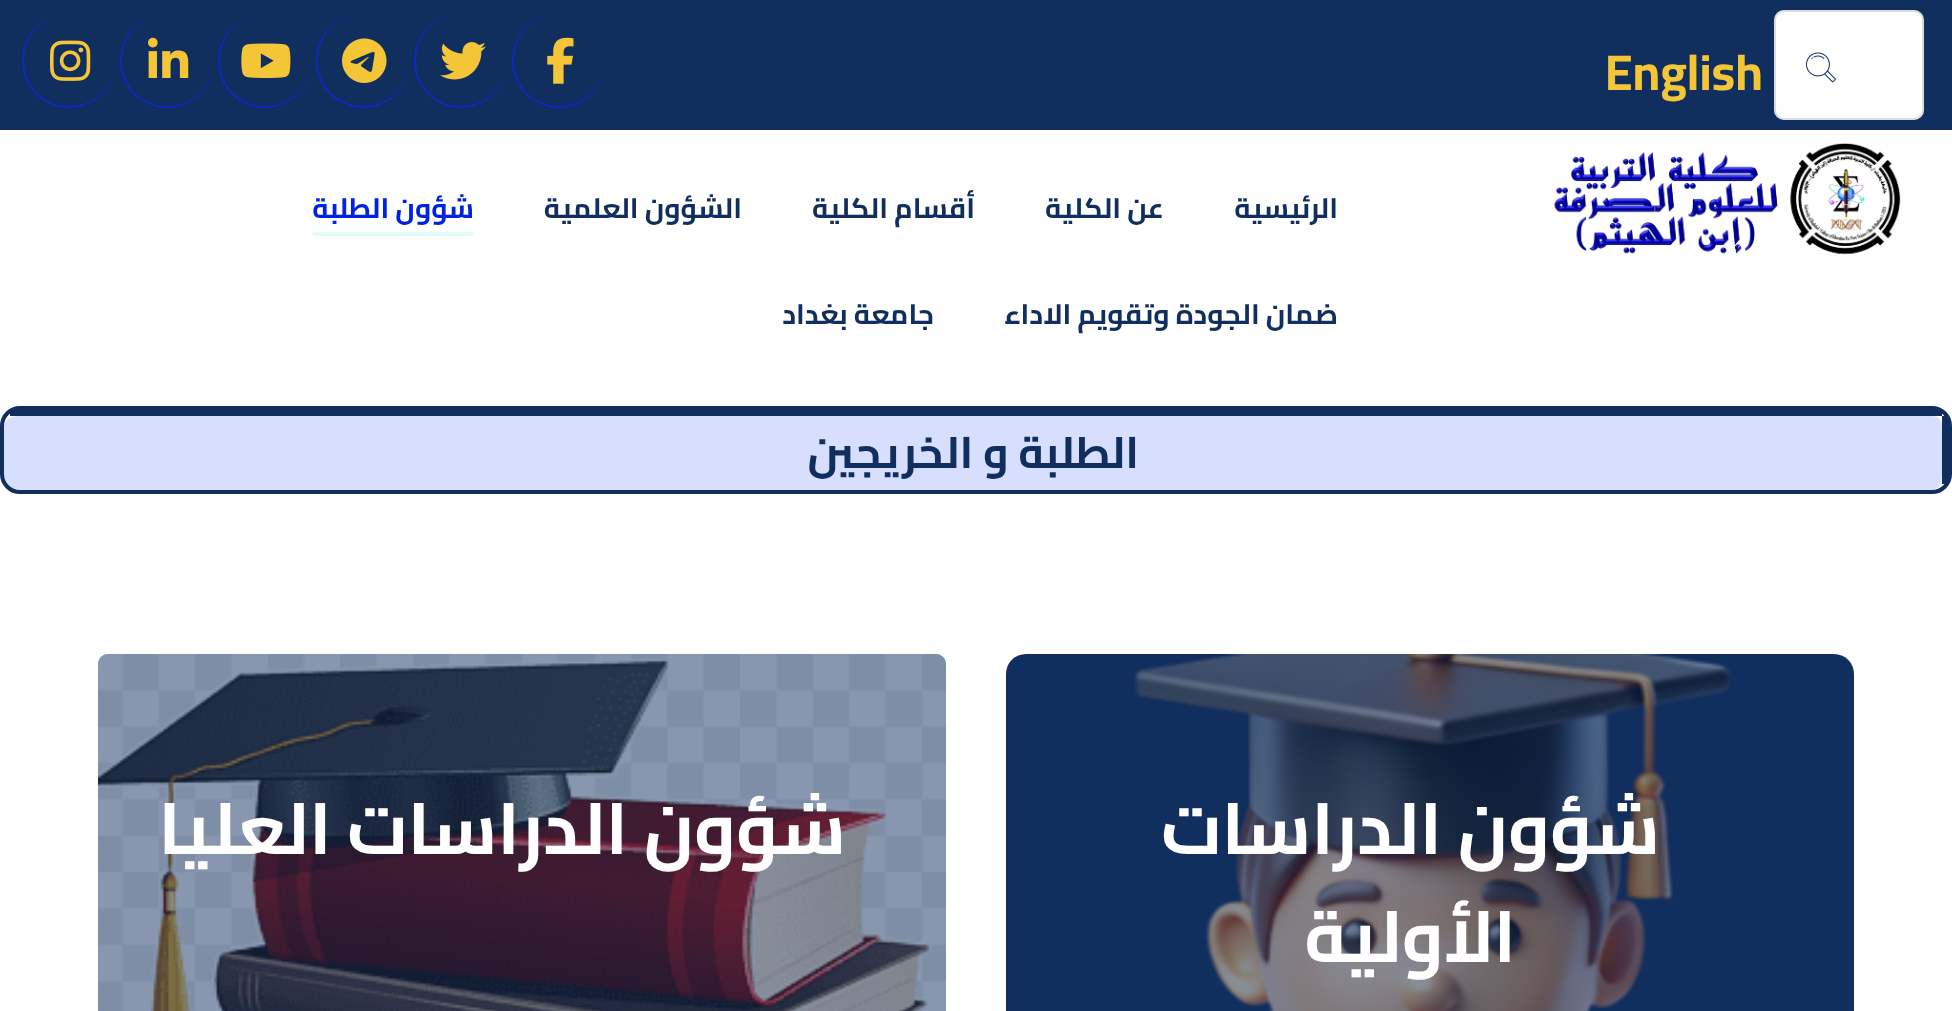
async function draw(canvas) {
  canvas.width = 1952;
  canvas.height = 1011;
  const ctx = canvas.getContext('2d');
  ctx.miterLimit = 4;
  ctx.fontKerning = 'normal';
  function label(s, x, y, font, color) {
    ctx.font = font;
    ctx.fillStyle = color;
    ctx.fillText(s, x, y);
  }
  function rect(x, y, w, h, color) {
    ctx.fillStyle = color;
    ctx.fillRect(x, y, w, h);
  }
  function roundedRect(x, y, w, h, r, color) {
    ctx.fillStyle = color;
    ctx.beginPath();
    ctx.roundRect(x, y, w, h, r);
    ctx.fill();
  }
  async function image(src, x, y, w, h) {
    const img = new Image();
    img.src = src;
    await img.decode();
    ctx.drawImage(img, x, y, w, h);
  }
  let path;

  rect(0, 0, 1952, 1011, '#fff');
  rect(0, 0, 1952, 130, '#102e5e');
  roundedRect(1774, 10, 150, 110, 10, '#fff');
  ctx.beginPath();
  ctx.roundRect(1775, 11, 148, 108, 9);
  ctx.strokeStyle = '#a7a7a766';
  ctx.lineWidth = 2;
  ctx.stroke();
  await image('assets/img1.png', 1806, 52, 30, 31);
  label('English', 1605, 90, 'bold 50px Cairo', '#f5c538');
  ctx.fillStyle = '#0c2abc';
  path = new Path2D('M559 14C585 14 606 35 606 61C606 87 585 108 559 108C533 108 512 87 512 61C512 35 533 14 559 14ZM559 14C585 14 606 35 606 61C606 86 585 106 559 106C534 106 514 86 514 61C514 35 534 14 559 14Z');
  ctx.fill(path, 'evenodd');
  await image('assets/img2.png', 547, 37, 27, 47);
  path = new Path2D('M461 14C487 14 508 35 508 61C508 87 487 108 461 108C435 108 414 87 414 61C414 35 435 14 461 14ZM461 14C487 14 508 35 508 61C508 86 487 106 461 106C436 106 416 86 416 61C416 35 436 14 461 14Z');
  ctx.fill(path, 'evenodd');
  await image('assets/img3.png', 440, 42, 46, 38);
  path = new Path2D('M363 14C389 14 410 35 410 61C410 87 389 108 363 108C337 108 316 87 316 61C316 35 337 14 363 14ZM363 14C389 14 410 35 410 61C410 86 389 106 363 106C338 106 318 86 318 61C318 35 338 14 363 14Z');
  ctx.fill(path, 'evenodd');
  await image('assets/img4.png', 342, 38, 45, 45);
  path = new Path2D('M265 14C291 14 312 35 312 61C312 87 291 108 265 108C239 108 218 87 218 61C218 35 239 14 265 14ZM265 14C291 14 312 35 312 61C312 86 291 106 265 106C240 106 220 86 220 61C220 35 240 14 265 14Z');
  ctx.fill(path, 'evenodd');
  await image('assets/img5.png', 241, 43, 50, 35);
  path = new Path2D('M167 14C193 14 214 35 214 61C214 87 193 108 167 108C141 108 120 87 120 61C120 35 141 14 167 14ZM167 14C193 14 214 35 214 61C214 86 193 106 167 106C142 106 122 86 122 61C122 35 142 14 167 14Z');
  ctx.fill(path, 'evenodd');
  await image('assets/img6.png', 148, 37, 41, 41);
  path = new Path2D('M69 14C95 14 116 35 116 61C116 87 95 108 69 108C43 108 22 87 22 61C22 35 43 14 69 14ZM69 14C95 14 116 35 116 61C116 86 95 106 69 106C44 106 24 86 24 61C24 35 44 14 69 14Z');
  ctx.fill(path, 'evenodd');
  await image('assets/img7.png', 50, 40, 41, 41);
  await image('assets/img8.png', 1554, 143, 347, 112);
  ctx.direction = 'rtl';
  label('الرئيسية', 1338, 218, 'bold 28px Cairo', '#102e5e');
  label('عن الكلية', 1164, 218, 'bold 28px Cairo', '#102e5e');
  label('أقسام الكلية', 975, 218, 'bold 28px Cairo', '#102e5e');
  label('الشؤون العلمية', 742, 218, 'bold 28px Cairo', '#102e5e');
  label('شؤون الطلبة', 474, 218, 'bold 28px Cairo', '#0022e5');
  roundedRect(312, 232, 162, 4, 2, '#e4f9f8');
  label('ضمان الجودة وتقويم الاداء', 1338, 324, 'bold 28px Cairo', '#102e5e');
  label('جامعة بغداد', 934, 324, 'bold 28px Cairo', '#102e5e');
  ctx.fillStyle = '#d8defd';
  path = new Path2D('M20 416H1932C1938 416 1942 420 1942 426V474C1942 483 1938 490 1932 490H20C11 490 4 483 4 474V426C4 420 11 416 20 416Z');
  ctx.fill(path);
  ctx.beginPath();
  ctx.roundRect(2, 408, 1948, 84, 18);
  ctx.strokeStyle = '#102e5e';
  ctx.lineWidth = 4;
  ctx.stroke();
  rect(10, 410, 1932, 6, '#102e5e');
  rect(1942, 416, 6, 68, '#102e5e');
  label('الطلبة و الخريجين', 1139, 468, 'bold 44px Cairo', '#102e5e');
  roundedRect(1006, 654, 848, 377, 20, '#102e5e');
  await image('assets/img9.png', 1134, 654, 597, 357);
  label('شؤون الدراسات', 1660, 854, 'bold 72px Cairo', '#fff');
  label('الأولية', 1516, 962, 'bold 72px Cairo', '#fff');
  roundedRect(98, 654, 848, 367, 10, '#102e5e');
  await image('assets/img10.png', 98, 654, 848, 357);
  label('شؤون الدراسات العليا', 846, 854, 'bold 72px Cairo', '#fff');
}

draw(document.querySelector('canvas'));
